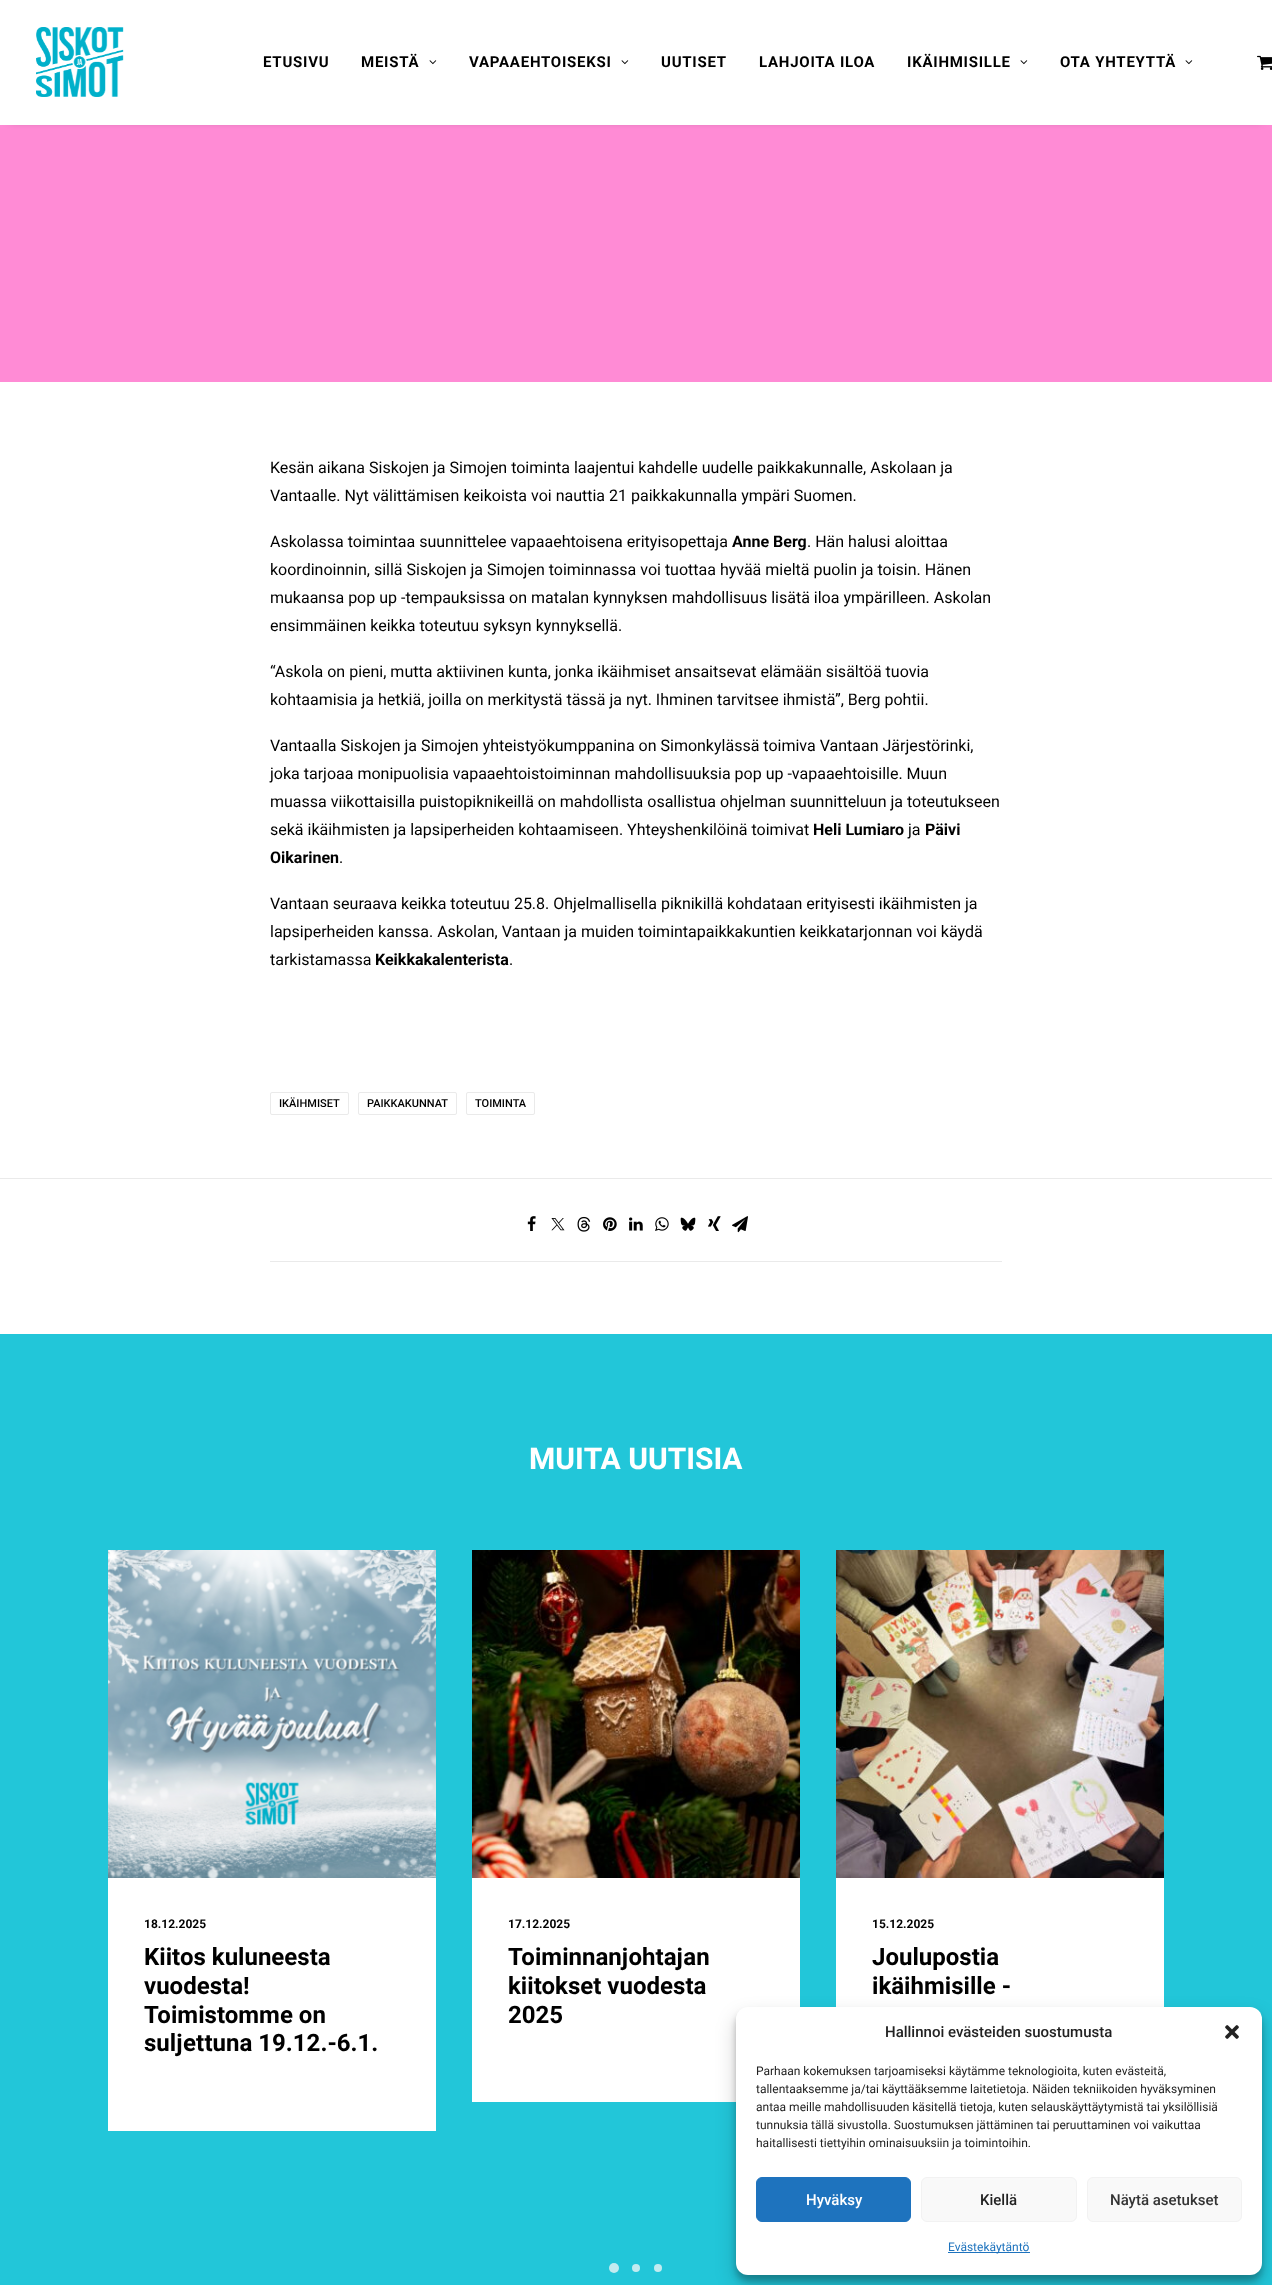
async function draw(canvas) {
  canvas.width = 1272;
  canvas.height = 2285;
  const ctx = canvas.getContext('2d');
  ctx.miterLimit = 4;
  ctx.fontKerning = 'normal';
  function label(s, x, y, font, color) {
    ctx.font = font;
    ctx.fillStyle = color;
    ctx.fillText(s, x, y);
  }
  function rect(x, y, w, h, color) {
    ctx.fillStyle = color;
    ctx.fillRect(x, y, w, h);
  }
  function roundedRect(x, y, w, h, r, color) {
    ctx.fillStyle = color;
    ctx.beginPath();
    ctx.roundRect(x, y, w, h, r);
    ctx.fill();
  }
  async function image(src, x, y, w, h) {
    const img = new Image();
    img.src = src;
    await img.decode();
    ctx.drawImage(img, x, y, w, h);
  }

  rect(0, 0, 1272, 2285, '#fff');
  rect(0, 125, 1272, 257, '#ff8bd5');
  ctx.fillStyle = '#00000099';
  ctx.filter = 'blur(5px)';
  ctx.beginPath();
  ctx.rect(10, 14, 1252, 105);
  ctx.fill();
  ctx.filter = 'none';
  rect(0, 3, 1272, 122, '#fff');
  await image('assets/img1.png', 36, 27, 88, 70);
  ctx.letterSpacing = '0.75px';
  label('ETUSIVU', 263, 67, 'bold 15px Roboto', '#000');
  label('MEISTÄ', 361, 67, 'bold 15px Roboto', '#000');
  await image('assets/img2.png', 429, 60, 8, 5);
  label('VAPAAEHTOISEKSI', 469, 67, 'bold 15px Roboto', '#000');
  await image('assets/img2.png', 621, 60, 8, 5);
  label('UUTISET', 661, 67, 'bold 15px Roboto', '#000');
  label('LAHJOITA ILOA', 759, 67, 'bold 15px Roboto', '#000');
  label('IKÄIHMISILLE', 907, 67, 'bold 15px Roboto', '#000');
  await image('assets/img2.png', 1020, 60, 8, 5);
  label('OTA YHTEYTTÄ', 1060, 67, 'bold 15px Roboto', '#000');
  await image('assets/img2.png', 1185, 60, 8, 5);
  await image('assets/img3.png', 1257, 55, 15, 15);
  ctx.letterSpacing = '0px';
  label('Kesän aikana Siskojen ja Simojen toiminta laajentui kahdelle uudelle paikkakunnalle, Askolaan ja', 270, 473, '16px Roboto', '#000');
  label('Vantaalle. Nyt välittämisen keikoista voi nauttia 21 paikkakunnalla ympäri Suomen.', 270, 501, '16px Roboto', '#000');
  label('Askolassa toimintaa suunnittelee vapaaehtoisena erityisopettaja', 270, 547, '16px Roboto', '#000');
  label('Anne Berg', 732, 547, 'bold 16px Roboto', '#000');
  label('. Hän halusi aloittaa', 807, 547, '16px Roboto', '#000');
  label('koordinoinnin, sillä Siskojen ja Simojen toiminnassa voi tuottaa hyvää mieltä puolin ja toisin. Hänen', 270, 575, '16px Roboto', '#000');
  label('mukaansa pop up -tempauksissa on matalan kynnyksen mahdollisuus lisätä iloa ympärilleen. Askolan', 270, 603, '16px Roboto', '#000');
  label('ensimmäinen keikka toteutuu syksyn kynnyksellä.', 270, 631, '16px Roboto', '#000');
  label('“Askola on pieni, mutta aktiivinen kunta, jonka ikäihmiset ansaitsevat elämään sisältöä tuovia', 270, 677, '16px Roboto', '#000');
  label('kohtaamisia ja hetkiä, joilla on merkitystä tässä ja nyt. Ihminen tarvitsee ihmistä”, Berg pohtii.', 270, 705, '16px Roboto', '#000');
  label('Vantaalla Siskojen ja Simojen yhteistyökumppanina on Simonkylässä toimiva Vantaan Järjestörinki,', 270, 751, '16px Roboto', '#000');
  label('joka tarjoaa monipuolisia vapaaehtoistoiminnan mahdollisuuksia pop up -vapaaehtoisille. Muun', 270, 779, '16px Roboto', '#000');
  label('muassa viikottaisilla puistopiknikeillä on mahdollista osallistua ohjelman suunnitteluun ja toteutukseen', 270, 807, '16px Roboto', '#000');
  label('sekä ikäihmisten ja lapsiperheiden kohtaamiseen. Yhteyshenkilöinä toimivat', 270, 835, '16px Roboto', '#000');
  label('Heli Lumiaro', 813, 835, 'bold 16px Roboto', '#000');
  label('ja', 908, 835, '16px Roboto', '#000');
  label('Päivi', 925, 835, 'bold 16px Roboto', '#000');
  label('Oikarinen', 270, 863, 'bold 16px Roboto', '#000');
  label('.', 339, 863, '16px Roboto', '#000');
  label('Vantaan seuraava keikka toteutuu 25.8. Ohjelmallisella piknikillä kohdataan erityisesti ikäihmisten ja', 270, 909, '16px Roboto', '#000');
  label('lapsiperheiden kanssa. Askolan, Vantaan ja muiden toimintapaikkakuntien keikkatarjonnan voi käydä', 270, 937, '16px Roboto', '#000');
  label('tarkistamassa', 270, 965, '16px Roboto', '#000');
  label('Keikkakalenterista', 375, 965, 'bold 16px Roboto', '#000');
  label('.', 509, 965, '16px Roboto', '#000');
  ctx.beginPath();
  ctx.roundRect(270.5, 1092.5, 78, 22, 1.5);
  ctx.strokeStyle = '#eaeaea';
  ctx.stroke();
  label('IKÄIHMISET', 279, 1107, '500 11px Roboto', '#000');
  ctx.beginPath();
  ctx.roundRect(358.5, 1092.5, 98, 22, 1.5);
  ctx.stroke();
  label('PAIKKAKUNNAT', 367, 1107, '500 11px Roboto', '#000');
  ctx.beginPath();
  ctx.roundRect(466.5, 1092.5, 68, 22, 1.5);
  ctx.stroke();
  label('TOIMINTA', 475, 1107, '500 11px Roboto', '#000');
  rect(0, 1178, 1272, 1, '#eaeaea');
  rect(270, 1261, 732, 1, '#eaeaea');
  await image('assets/img4.png', 527, 1216, 9, 15);
  await image('assets/img5.png', 551, 1218, 14, 13);
  await image('assets/img6.png', 577, 1216, 14, 16);
  await image('assets/img7.png', 603, 1217, 14, 14);
  await image('assets/img8.png', 629, 1217, 14, 14);
  await image('assets/img9.png', 655, 1217, 14, 14);
  await image('assets/img10.png', 680, 1217, 16, 14);
  await image('assets/img11.png', 708, 1216, 13, 15);
  await image('assets/img12.png', 732, 1216, 16, 17);
  rect(0, 1334, 1272, 951, '#22c6d9');
  label('MUITA UUTISIA', 529, 1469, 'bold 30px Heebo', '#fff');
  rect(108, 1878, 328, 253, '#fff');
  await image('assets/img13.png', 108, 1550, 328, 328);
  label('18.12.2025', 144, 1928, 'bold 12px Roboto', '#000');
  label('Kiitos kuluneesta', 144, 1965, 'bold 24px Heebo', '#000');
  label('vuodesta!', 144, 1994, 'bold 24px Heebo', '#000');
  label('Toimistomme on', 144, 2023, 'bold 24px Heebo', '#000');
  label('suljettuna 19.12.-6.1.', 144, 2051, 'bold 24px Heebo', '#000');
  rect(472, 1878, 328, 224, '#fff');
  await image('assets/img14.png', 472, 1550, 328, 328);
  label('17.12.2025', 508, 1928, 'bold 12px Roboto', '#000');
  label('Toiminnanjohtajan', 508, 1965, 'bold 24px Heebo', '#000');
  label('kiitokset vuodesta', 508, 1994, 'bold 24px Heebo', '#000');
  label('2025', 508, 2023, 'bold 24px Heebo', '#000');
  rect(836, 1878, 328, 129, '#fff');
  await image('assets/img15.png', 836, 1550, 328, 328);
  label('15.12.2025', 872, 1928, 'bold 12px Roboto', '#000');
  label('Joulupostia', 872, 1965, 'bold 24px Heebo', '#000');
  label('ikäihmisille -', 872, 1994, 'bold 24px Heebo', '#000');
  ctx.fillStyle = '#c2ebf0';
  ctx.beginPath();
  ctx.arc(614, 2268, 5, 0, 2 * Math.PI);
  ctx.fill();
  ctx.beginPath();
  ctx.arc(636, 2268, 4, 0, 2 * Math.PI);
  ctx.fill();
  ctx.beginPath();
  ctx.arc(658, 2268, 4, 0, 2 * Math.PI);
  ctx.fill();
  ctx.fillStyle = '#0000003b';
  ctx.filter = 'blur(3px)';
  ctx.beginPath();
  ctx.roundRect(736, 2013, 526, 268, 12);
  ctx.fill();
  ctx.filter = 'none';
  ctx.fillStyle = '#00000030';
  ctx.filter = 'blur(10px)';
  ctx.beginPath();
  ctx.roundRect(736, 2017, 526, 268, 12);
  ctx.fill();
  ctx.filter = 'none';
  roundedRect(736, 2007, 526, 268, 12, '#fff');
  label('Hallinnoi evästeiden suostumusta', 885, 2037, '500 15px Roboto', '#222');
  await image('assets/img16.png', 1225, 2025, 14, 14);
  label('Parhaan kokemuksen tarjoamiseksi käytämme teknologioita, kuten evästeitä,', 756, 2075, '12px Roboto', '#222');
  label('tallentaaksemme ja/tai käyttääksemme laitetietoja. Näiden tekniikoiden hyväksyminen', 756, 2093, '12px Roboto', '#222');
  label('antaa meille mahdollisuuden käsitellä tietoja, kuten selauskäyttäytymistä tai yksilöllisiä', 756, 2111, '12px Roboto', '#222');
  label('tunnuksia tällä sivustolla. Suostumuksen jättäminen tai peruuttaminen voi vaikuttaa', 756, 2129, '12px Roboto', '#222');
  label('haitallisesti tiettyihin ominaisuuksiin ja toimintoihin.', 756, 2147, '12px Roboto', '#222');
  ctx.fillStyle = '#1e73be';
  ctx.beginPath();
  ctx.roundRect(756.5, 2177.5, 154, 44, 5.5);
  ctx.fill();
  ctx.strokeStyle = '#1e73be';
  ctx.stroke();
  label('Hyväksy', 806, 2205, '500 15px Roboto', '#fff');
  ctx.fillStyle = '#f9f9f9';
  ctx.beginPath();
  ctx.roundRect(921.5, 2177.5, 155, 44, 5.5);
  ctx.fill();
  ctx.strokeStyle = '#f2f2f2';
  ctx.stroke();
  label('Kiellä', 980, 2205, '500 15px Roboto', '#222');
  ctx.fillStyle = '#f9f9f9';
  ctx.beginPath();
  ctx.roundRect(1087.5, 2177.5, 154, 44, 5.5);
  ctx.fill();
  ctx.stroke();
  label('Näytä asetukset', 1110, 2205, '500 15px Roboto', '#333');
  rect(948, 2252, 82, 1, '#1e73be');
  label('Evästekäytäntö', 948, 2251, '12px Roboto', '#1e73be');
}

draw(document.querySelector('canvas'));
